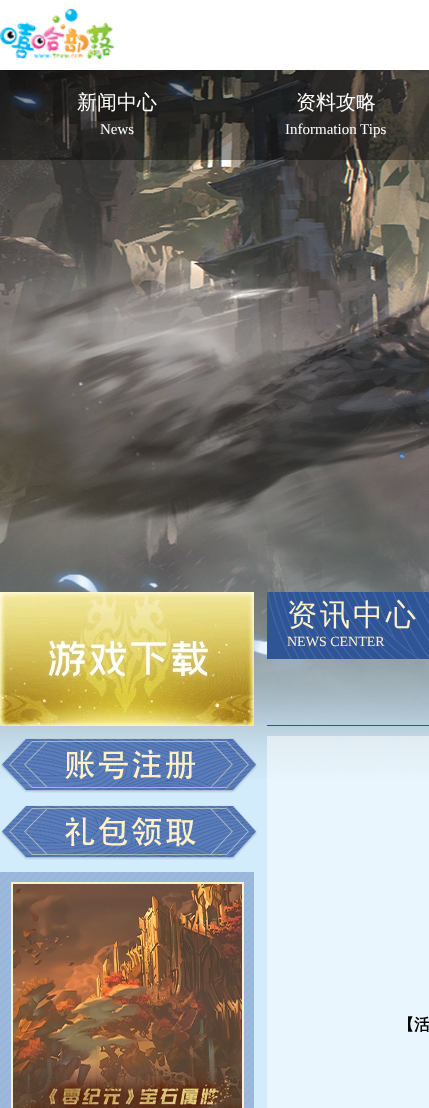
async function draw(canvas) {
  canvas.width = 429;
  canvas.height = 1108;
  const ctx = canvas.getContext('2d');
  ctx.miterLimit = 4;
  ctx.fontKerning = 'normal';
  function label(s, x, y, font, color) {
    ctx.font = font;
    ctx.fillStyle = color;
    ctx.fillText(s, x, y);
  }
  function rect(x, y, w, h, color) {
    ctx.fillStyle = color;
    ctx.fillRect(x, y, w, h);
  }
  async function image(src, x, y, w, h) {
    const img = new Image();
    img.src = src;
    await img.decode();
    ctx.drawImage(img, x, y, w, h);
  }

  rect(0, 0, 429, 1108, '#fff');
  await image('assets/img1.png', 0, 9, 114, 50);
  rect(0, 779, 429, 329, '#d2ecfb');
  await image('assets/img2.png', 0, 70, 429, 709);
  rect(0, 70, 429, 90, '#00000066');
  label('新闻中心', 77, 109, '500 20px WenQuanYi Zen Hei', '#fff');
  label('News', 100, 134, '15px Liberation Serif', '#fff');
  label('资料攻略', 296, 109, '500 20px WenQuanYi Zen Hei', '#fff');
  label('Information Tips', 285, 134, '15px Liberation Serif', '#fff');
  await image('assets/img3.png', 0, 592, 254, 134);
  await image('assets/img4.png', 1, 738, 256, 55);
  await image('assets/img5.png', 1, 805, 256, 55);
  await image('assets/img6.png', 0, 872, 254, 236);
  ctx.strokeStyle = '#fff0c6';
  ctx.lineWidth = 2;
  ctx.strokeRect(12, 883, 231, 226);
  await image('assets/img7.png', 13, 884, 229, 224);
  await image('assets/img8.png', 267, 592, 162, 134);
  ctx.letterSpacing = '3px';
  label('资讯中心', 287, 625, '500 30px WenQuanYi Zen Hei', '#fff0c6');
  ctx.letterSpacing = '0px';
  label('NEWS CENTER', 287, 646, '14px Liberation Serif', '#fff0c6');
  rect(267, 736, 162, 372, '#ffffff80');
  label('【活', 398, 1030, 'bold 16px WenQuanYi Zen Hei', '#000');
}

draw(document.querySelector('canvas'));
